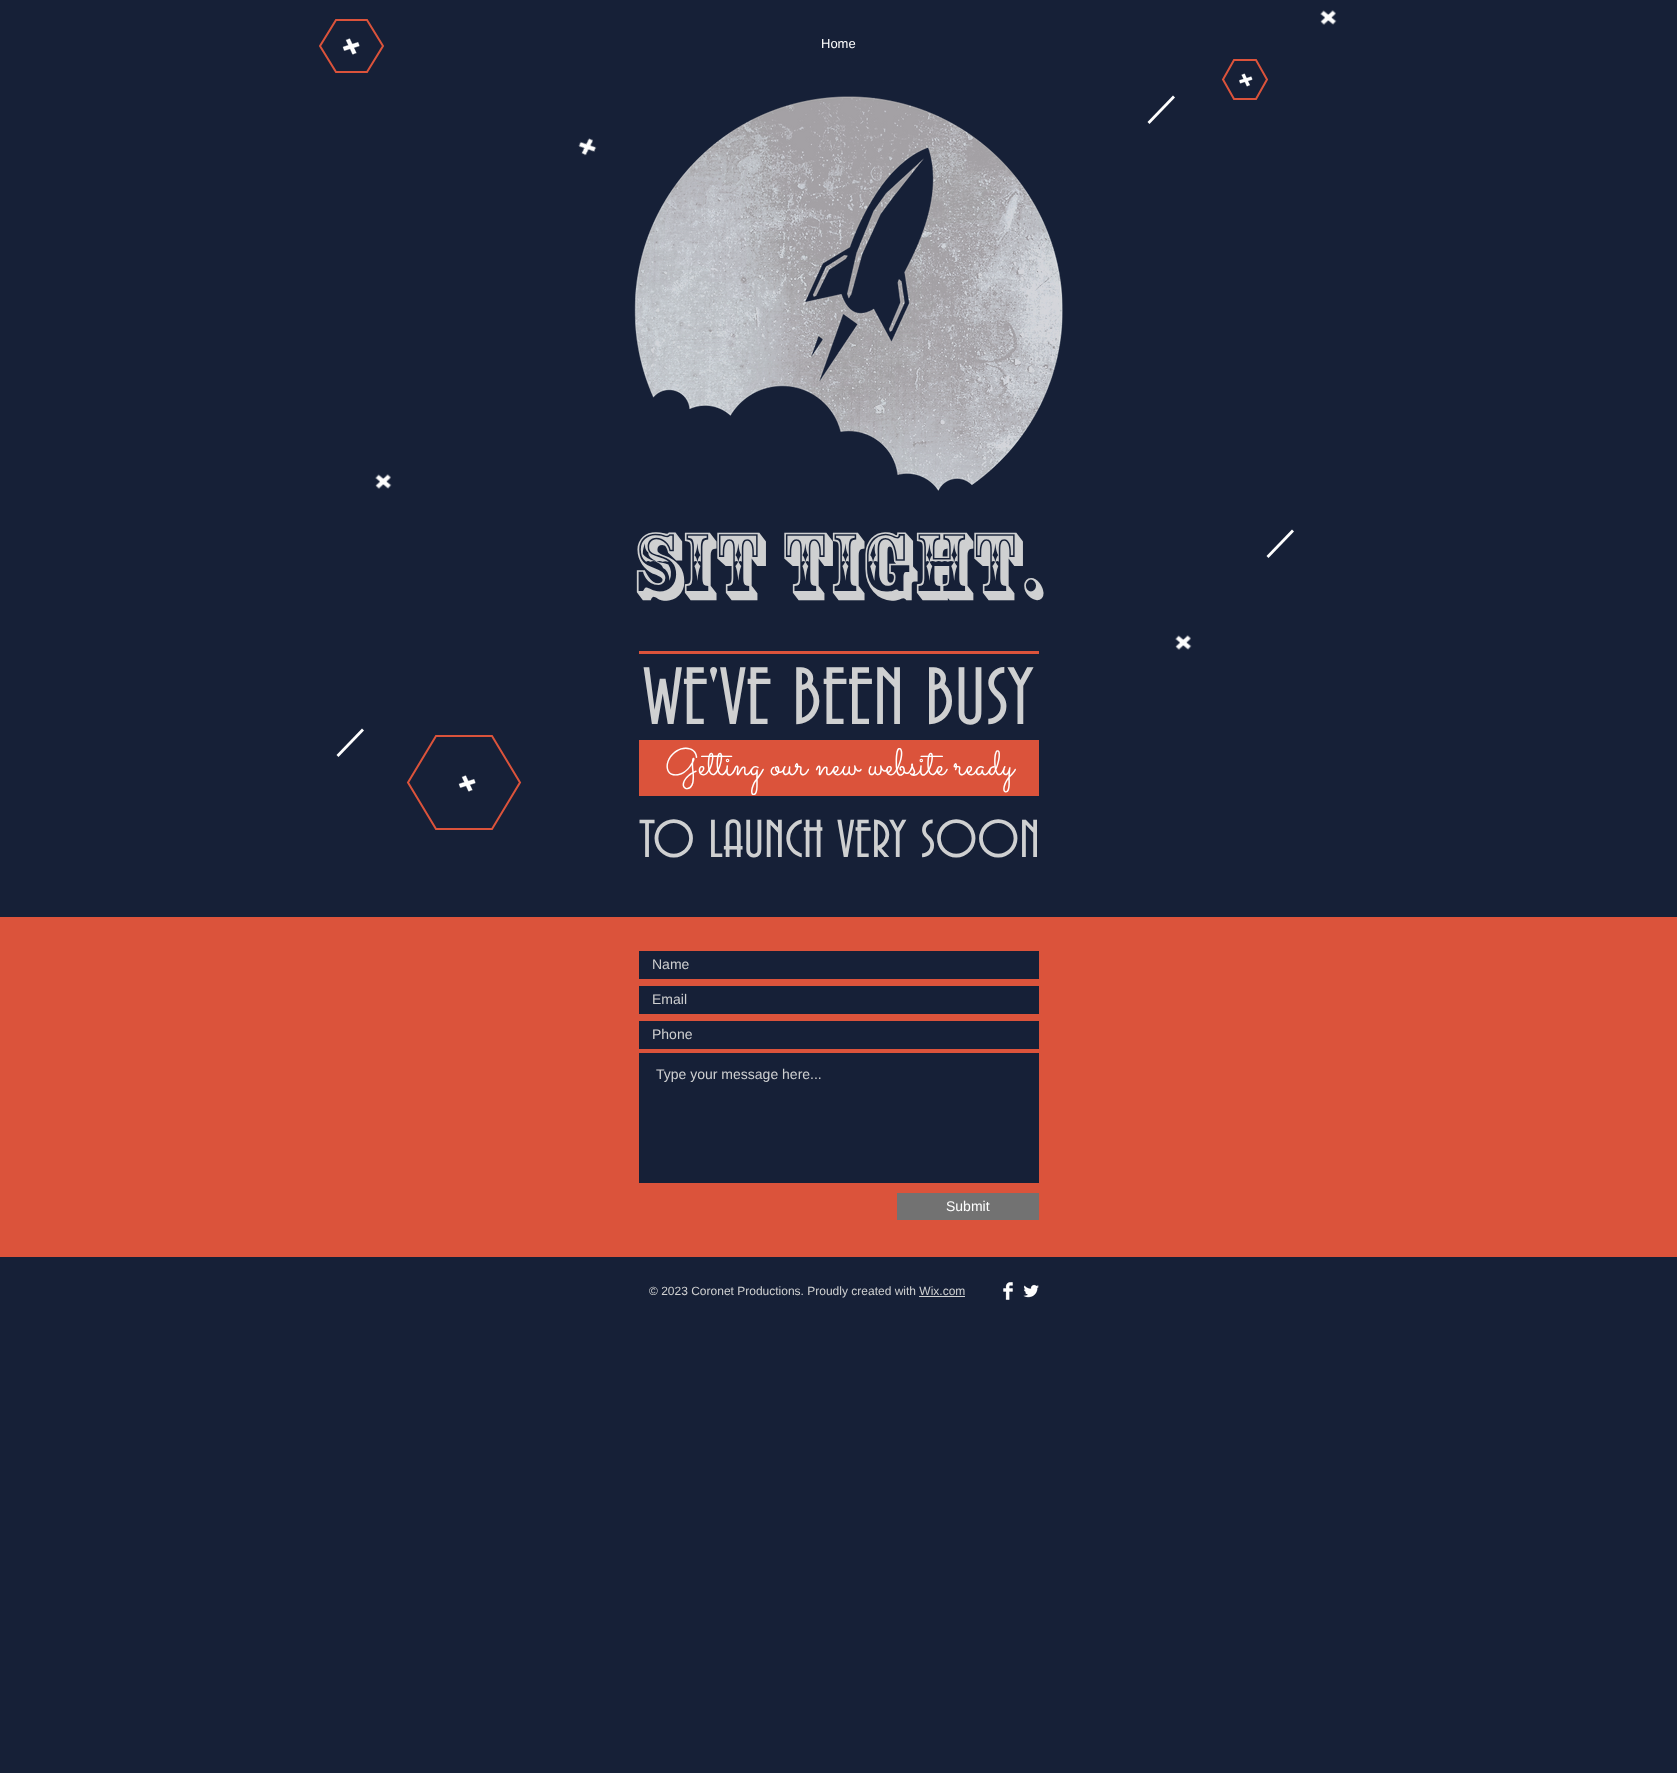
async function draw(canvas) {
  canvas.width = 1677;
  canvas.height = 1773;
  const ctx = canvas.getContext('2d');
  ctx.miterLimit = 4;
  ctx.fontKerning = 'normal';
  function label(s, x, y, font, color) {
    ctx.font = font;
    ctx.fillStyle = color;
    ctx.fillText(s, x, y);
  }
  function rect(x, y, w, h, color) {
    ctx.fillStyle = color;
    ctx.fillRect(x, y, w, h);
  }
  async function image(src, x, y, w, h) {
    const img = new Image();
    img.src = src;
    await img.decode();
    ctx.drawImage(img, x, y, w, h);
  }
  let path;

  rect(0, 0, 1677, 1773, '#162037');
  await image('assets/img1.png', 1320, 10, 17, 15);
  path = new Path2D('M367 20L383 46L367 72H336L320 46L336 20Z');
  ctx.strokeStyle = '#db533b';
  ctx.lineWidth = 2;
  ctx.stroke(path);
  await image('assets/img2.png', 342, 38, 18, 17);
  label('Home', 821, 48, '13px Liberation Sans', '#fff');
  await image('assets/img3.png', 1239, 73, 14, 14);
  path = new Path2D('M1256 60L1267 79.5L1256 99H1234L1223 79.5L1234 60Z');
  ctx.stroke(path);
  await image('assets/img4.png', 578, 138, 19, 18);
  await image('assets/img5.png', 634, 96, 429, 395);
  path = new Path2D('M1173 95.5L1175 97.5L1149.5 124L1147.5 122Z');
  ctx.fill(path);
  await image('assets/img1.png', 375, 474, 17, 15);
  label('Sit tight.', 633, 591, '90px "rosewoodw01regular"', '#cfd0d1');
  ctx.fillStyle = '#fff';
  path = new Path2D('M1292 529.5L1294 531.5L1268.5 558L1266.5 556Z');
  ctx.fill(path);
  await image('assets/img1.png', 1175, 635, 17, 15);
  rect(639, 651, 400, 3, '#db533b');
  label('WE\'VE BEEN BUSY', 643, 724, '85px "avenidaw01"', '#cfd0d1');
  ctx.fillStyle = '#fff';
  path = new Path2D('M362 728.5L364 730.5L338.5 757L336.5 755Z');
  ctx.fill(path);
  await image('assets/img2.png', 458, 775, 18, 17);
  path = new Path2D('M492 736L520 782.5L492 829H436L408 782.5L436 736Z');
  ctx.stroke(path);
  rect(639, 740, 400, 56, '#db533b');
  label('Getting our new website ready', 665, 775, '38px Sacramento', '#fff');
  label('TO LAUNCH VERY SOON', 639, 857, '56px "avenidaw01"', '#cfd0d1');
  rect(0, 917, 1677, 340, '#db533b');
  rect(639, 951, 400, 28, '#162037');
  label('Name', 652, 969, '14px Liberation Sans', '#cfd0d1');
  rect(639, 986, 400, 28, '#162037');
  label('Email', 652, 1004, '14px Liberation Sans', '#cfd0d1');
  rect(639, 1021, 400, 28, '#162037');
  label('Phone', 652, 1039, '14px Liberation Sans', '#cfd0d1');
  rect(639, 1053, 400, 130, '#162037');
  label('Type your message here...', 656, 1079, '14px Liberation Sans', '#cfd0d1');
  rect(897, 1193, 142, 27, '#727272');
  label('Submit', 946, 1211, '14px Liberation Sans', '#fff');
  label('© 2023 Coronet Productions. Proudly created with Wix.com', 649, 1295, '12px Liberation Sans', '#cfd0d1');
  rect(919, 1296, 46, 1, '#cfd0d1');
  await image('assets/img6.png', 1003, 1282, 10, 18);
  await image('assets/img7.png', 1023, 1284, 16, 14);
}

draw(document.querySelector('canvas'));
